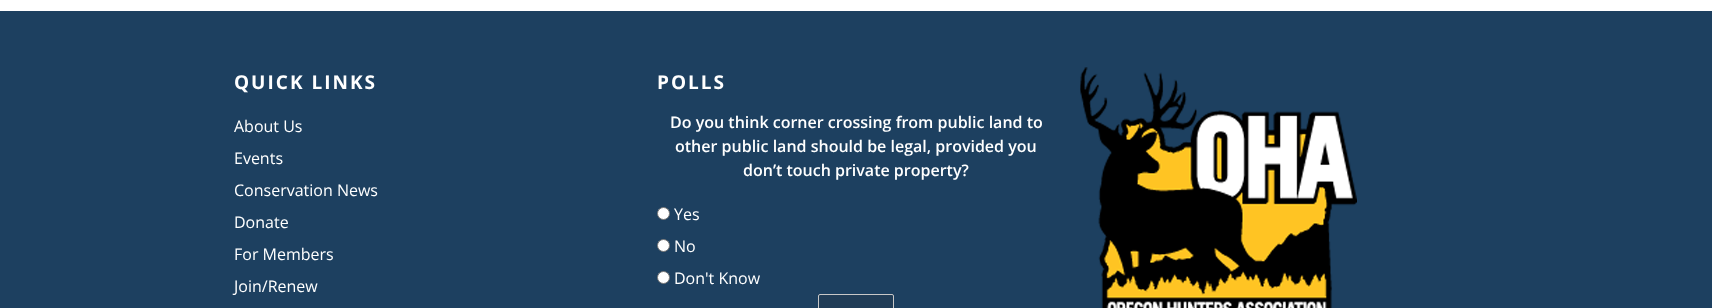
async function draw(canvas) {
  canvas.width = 1712;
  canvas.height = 308;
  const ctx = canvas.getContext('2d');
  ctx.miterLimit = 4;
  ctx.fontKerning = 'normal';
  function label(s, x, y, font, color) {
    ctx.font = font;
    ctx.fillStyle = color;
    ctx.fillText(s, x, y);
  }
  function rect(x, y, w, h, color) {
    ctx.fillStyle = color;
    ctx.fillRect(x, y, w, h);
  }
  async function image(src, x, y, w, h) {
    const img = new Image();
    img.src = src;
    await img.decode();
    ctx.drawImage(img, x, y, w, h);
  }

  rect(0, 0, 1712, 308, '#fff');
  rect(0, 11, 1712, 297, '#1d4060');
  ctx.letterSpacing = '2px';
  label('QUICK LINKS', 234, 89, 'bold 19px Open Sans', '#fff');
  ctx.letterSpacing = '0px';
  label('About Us', 234, 132, '16px Open Sans', '#fff');
  label('Events', 234, 164, '16px Open Sans', '#fff');
  label('Conservation News', 234, 196, '16px Open Sans', '#fff');
  label('Donate', 234, 228, '16px Open Sans', '#fff');
  label('For Members', 234, 260, '16px Open Sans', '#fff');
  label('Join/Renew', 234, 292, '16px Open Sans', '#fff');
  ctx.letterSpacing = '2px';
  label('POLLS', 657, 89, 'bold 19px Open Sans', '#fff');
  ctx.letterSpacing = '0px';
  label('Do you think corner crossing from public land to', 670, 128, '600 16px Open Sans', '#fff');
  label('other public land should be legal, provided you', 675, 152, '600 16px Open Sans', '#fff');
  label('don’t touch private property?', 743, 176, '600 16px Open Sans', '#fff');
  ctx.beginPath();
  ctx.arc(663.5, 213.5, 6, 0, 2 * Math.PI);
  ctx.fill();
  ctx.strokeStyle = '#767676';
  ctx.stroke();
  label('Yes', 674, 220, '16px Open Sans', '#fff');
  ctx.beginPath();
  ctx.arc(663.5, 245.5, 6, 0, 2 * Math.PI);
  ctx.fill();
  ctx.stroke();
  label('No', 674, 252, '16px Open Sans', '#fff');
  ctx.beginPath();
  ctx.arc(663.5, 277.5, 6, 0, 2 * Math.PI);
  ctx.fill();
  ctx.stroke();
  label('Don\'t Know', 674, 284, '16px Open Sans', '#fff');
  ctx.fillStyle = '#213d57';
  ctx.beginPath();
  ctx.roundRect(818.5, 294.5, 75, 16, 1.5);
  ctx.fill();
  ctx.strokeStyle = '#c8c8c8';
  ctx.stroke();
  await image('assets/img1.png', 1080, 67, 277, 241);
}

draw(document.querySelector('canvas'));
